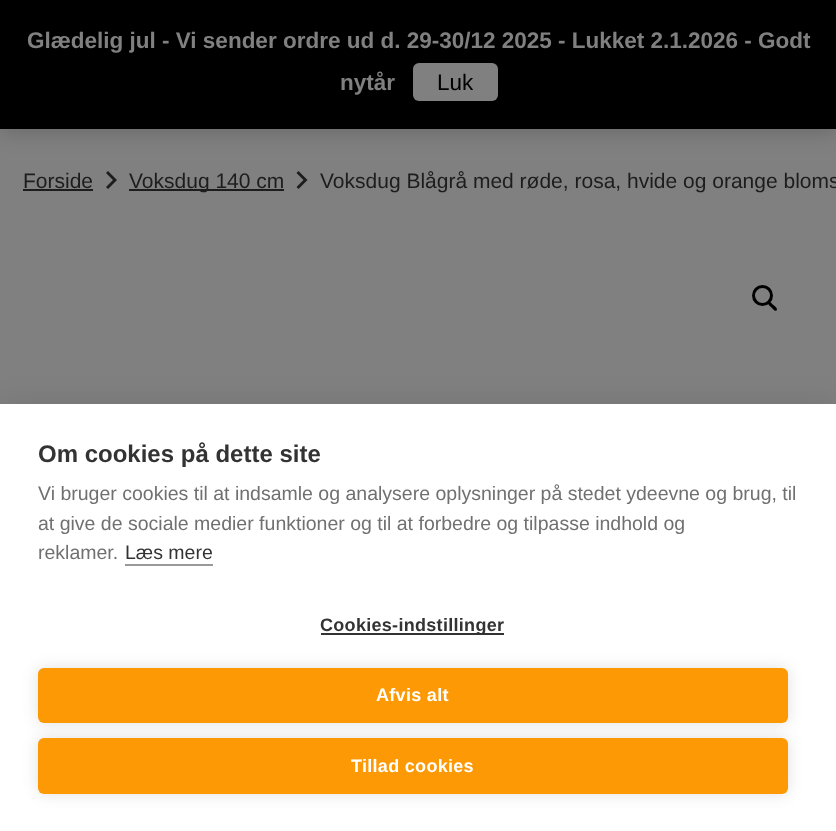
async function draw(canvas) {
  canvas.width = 836;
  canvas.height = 831;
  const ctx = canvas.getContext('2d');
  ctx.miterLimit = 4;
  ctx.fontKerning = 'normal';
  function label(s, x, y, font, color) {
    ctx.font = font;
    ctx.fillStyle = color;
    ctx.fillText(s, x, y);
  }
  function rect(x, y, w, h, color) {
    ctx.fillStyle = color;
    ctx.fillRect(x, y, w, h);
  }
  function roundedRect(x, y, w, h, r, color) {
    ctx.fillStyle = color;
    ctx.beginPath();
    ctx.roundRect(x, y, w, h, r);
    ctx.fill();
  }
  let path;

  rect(0, 0, 836, 831, '#808080');
  ctx.fillStyle = '#00000033';
  ctx.filter = 'blur(11px)';
  ctx.beginPath();
  ctx.rect(0, 2, 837, 129);
  ctx.fill();
  ctx.filter = 'none';
  rect(0, 0, 836, 129, '#000');
  label('Glædelig jul - Vi sender ordre ud d. 29-30/12 2025 - Lukket 2.1.2026 - Godt', 27, 48, 'bold 22.5px Liberation Sans', '#808080');
  label('nytår', 340, 90, 'bold 22.5px Liberation Sans', '#808080');
  roundedRect(413, 63, 85, 38, 6, '#808080');
  label('Luk', 437, 90, '22.5px Liberation Sans', '#000');
  label('Forside', 23, 188, '21px Liberation Sans', '#1d1d1d');
  rect(23, 189, 70, 2, '#1d1d1d');
  path = new Path2D('M108 171L117 180L108 189L106 187L113 180L106 173Z');
  ctx.fill(path);
  rect(129, 189, 155, 2, '#1d1d1d');
  label('Voksdug 140 cm', 129, 188, '21px Liberation Sans', '#1d1d1d');
  path = new Path2D('M298.5 171L307.5 180L298.5 189L296.5 187L303.5 180L296.5 173Z');
  ctx.fill(path);
  label('Voksdug Blågrå med røde, rosa, hvide og orange bloms', 320, 188, '21px Liberation Sans', '#1d1d1d');
  ctx.beginPath();
  ctx.arc(762.5, 295.5, 9, 0, 2 * Math.PI);
  ctx.strokeStyle = '#000';
  ctx.lineWidth = 3;
  ctx.stroke();
  ctx.fillStyle = '#000';
  path = new Path2D('M768.5 302C770 300.5 772.5 304.5 773.5 305C774.5 306 778.5 309 776.5 310.5C775 312 772.5 308.5 771.5 307.5C770.5 306.5 766.5 303.5 768.5 302Z');
  ctx.fill(path);
  ctx.fillStyle = '#0000001a';
  ctx.filter = 'blur(15px)';
  ctx.beginPath();
  ctx.rect(0, 404, 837, 427);
  ctx.fill();
  ctx.filter = 'none';
  rect(0, 404, 836, 427, '#fff');
  label('Om cookies på dette site', 38, 462, 'bold 24px Liberation Sans', '#333');
  label('Vi bruger cookies til at indsamle og analysere oplysninger på stedet ydeevne og brug, til', 38, 500, '19.5px Liberation Sans', '#707070');
  label('at give de sociale medier funktioner og til at forbedre og tilpasse indhold og', 38, 530, '19.5px Liberation Sans', '#707070');
  label('reklamer.', 38, 559, '19.5px Liberation Sans', '#707070');
  label('Læs mere', 125, 559, '19.5px Liberation Sans', '#333');
  rect(125, 564, 88, 2, '#999');
  rect(321, 633, 183, 2, '#333');
  ctx.letterSpacing = '0.3px';
  label('Cookies-indstillinger', 320, 631, 'bold 18px Liberation Sans', '#333');
  ctx.fillStyle = '#0000001f';
  ctx.filter = 'blur(7.5px)';
  ctx.beginPath();
  ctx.roundRect(38, 668, 750, 55, 6);
  ctx.fill();
  ctx.filter = 'none';
  roundedRect(38, 668, 750, 55, 6, '#fd9904');
  label('Afvis alt', 376, 701, 'bold 18px Liberation Sans', '#fff');
  ctx.fillStyle = '#0000001f';
  ctx.filter = 'blur(7.5px)';
  ctx.beginPath();
  ctx.roundRect(38, 738, 750, 56, 6);
  ctx.fill();
  ctx.filter = 'none';
  roundedRect(38, 738, 750, 56, 6, '#fd9904');
  label('Tillad cookies', 351, 772, 'bold 18px Liberation Sans', '#fff');
}

draw(document.querySelector('canvas'));
